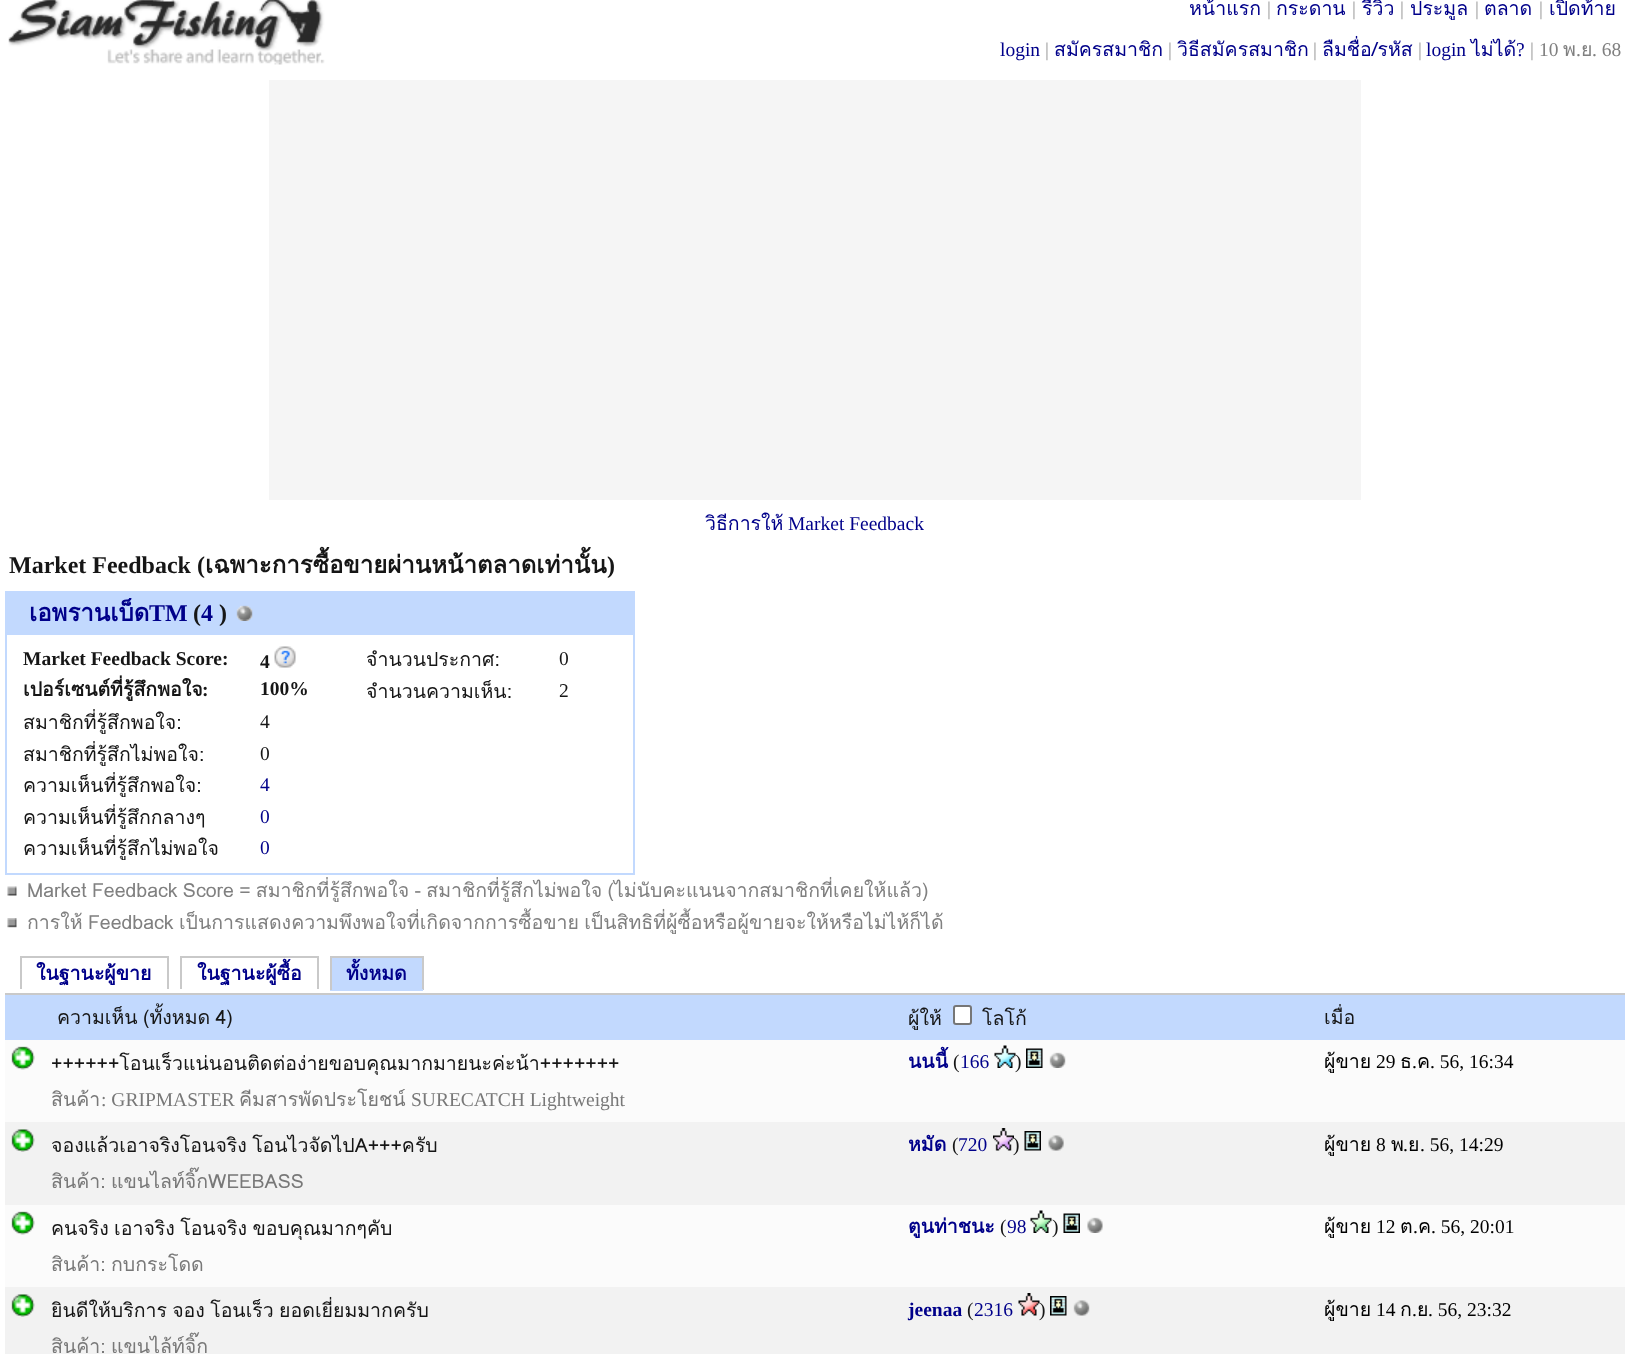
async function draw(canvas) {
  canvas.width = 1628;
  canvas.height = 1354;
  const ctx = canvas.getContext('2d');
  ctx.miterLimit = 4;
  ctx.fontKerning = 'normal';
  function label(s, x, y, font, color) {
    ctx.font = font;
    ctx.fillStyle = color;
    ctx.fillText(s, x, y);
  }
  function rect(x, y, w, h, color) {
    ctx.fillStyle = color;
    ctx.fillRect(x, y, w, h);
  }
  async function image(src, x, y, w, h) {
    const img = new Image();
    img.src = src;
    await img.decode();
    ctx.drawImage(img, x, y, w, h);
  }

  rect(0, 0, 1628, 1354, '#fff');
  await image('assets/img1.png', 8, 0, 317, 65);
  label('หน้าแรก', 1189, 15, '19.5px Loma', '#00008a');
  label('|', 1267, 15, '19.5px Liberation Serif', '#999');
  label('|', 1352, 15, '19.5px Liberation Serif', '#999');
  label('รีวิว', 1362, 15, '19.5px Loma', '#00008a');
  label('ประมูล', 1410, 15, '19.5px Loma', '#00008a');
  label('เปิดท้าย', 1549, 15, '19.5px Loma', '#00008a');
  label('กระดาน', 1276, 15, '19.5px Loma', '#00008a');
  label('|', 1400, 15, '19.5px Liberation Serif', '#999');
  label('|', 1475, 15, '19.5px Liberation Serif', '#999');
  label('ตลาด', 1484, 15, '19.5px Loma', '#00008a');
  label('|', 1539, 15, '19.5px Liberation Serif', '#999');
  label('login', 1000, 56, '19.5px Liberation Serif', '#00008a');
  label('|', 1045, 56, '19.5px Liberation Serif', '#999');
  label('สมัครสมาชิก', 1054, 56, '19.5px Loma', '#00008a');
  label('|', 1168, 56, '19.5px Liberation Serif', '#999');
  label('วิธีสมัครสมาชิก', 1177, 56, '19.5px Loma', '#00008a');
  label('|', 1313, 56, '19.5px Liberation Serif', '#999');
  label('ลืมชื่อ/รหัส', 1322, 56, '19.5px Loma', '#00008a');
  label('ไม่ได้', 1471, 56, '19.5px Loma', '#00008a');
  label('|', 1418, 56, '19.5px Liberation Serif', '#999');
  label('login', 1426, 56, '19.5px Liberation Serif', '#00008a');
  label('?', 1516, 56, '19.5px Liberation Serif', '#00008a');
  label('|', 1530, 56, '19.5px Liberation Serif', '#999');
  label('10', 1539, 56, '19.5px Liberation Serif', '#808080');
  label('พ', 1563, 56, '19.5px Loma', '#808080');
  label('.', 1576, 56, '19.5px Liberation Serif', '#808080');
  label('ย', 1581, 56, '19.5px Loma', '#808080');
  label('. 68', 1592, 56, '19.5px Liberation Serif', '#808080');
  rect(269, 80, 1092, 420, '#f5f5f5');
  label('วิธีการให้', 705, 530, '19.5px Loma', '#00008a');
  label('Market Feedback', 788, 530, '19.5px Liberation Serif', '#00008a');
  label('Market Feedback (', 9, 573, 'bold 24px Liberation Serif', '#161616');
  label('เฉพาะการซื้อขายผ่านหน้าตลาดเท่านั้น', 205, 573, 'bold 24px Loma', '#161616');
  label(')', 607, 573, 'bold 24px Liberation Serif', '#161616');
  rect(5, 591, 630, 2, '#c2d9fe');
  rect(633, 591, 2, 284, '#c2d9fe');
  rect(5, 873, 630, 2, '#c2d9fe');
  rect(5, 591, 2, 284, '#c2d9fe');
  rect(7, 593, 626, 42, '#c2d9fe');
  label('เอพรานเบ็ด', 29, 621, 'bold 24px Loma', '#00008a');
  label('TM', 149, 621, 'bold 24px Liberation Serif', '#00008a');
  label('(', 193, 621, 'bold 24px Liberation Serif', '#161616');
  label('4', 201, 621, 'bold 24px Liberation Serif', '#00008a');
  label(')', 219, 621, 'bold 24px Liberation Serif', '#161616');
  await image('assets/img2.png', 236, 605, 17, 16);
  label('Market Feedback Score:', 23, 665, 'bold 19.5px Liberation Serif', '#161616');
  label('4', 260, 668, 'bold 19.5px Liberation Serif', '#161616');
  await image('assets/img3.png', 274, 646, 22, 22);
  label('เปอร์เซนต์ที่รู้สึกพอใจ', 23, 696, 'bold 19.5px Loma', '#161616');
  label(':', 202, 696, 'bold 19.5px Liberation Serif', '#161616');
  label('100%', 260, 695, 'bold 19.5px Liberation Serif', '#161616');
  label('สมาชิกที่รู้สึกพอใจ:', 23, 729, '19.5px Loma', '#161616');
  label('4', 260, 728, '19.5px Liberation Serif', '#161616');
  label('สมาชิกที่รู้สึกไม่พอใจ:', 23, 761, '19.5px Loma', '#161616');
  label('0', 260, 760, '19.5px Liberation Serif', '#161616');
  label('ความเห็นที่รู้สึกพอใจ:', 23, 792, '19.5px Loma', '#161616');
  label('4', 260, 791, '19.5px Liberation Serif', '#00008a');
  label('ความเห็นที่รู้สึกกลางๆ', 23, 824, '19.5px Loma', '#161616');
  label('0', 260, 823, '19.5px Liberation Serif', '#00008a');
  label('ความเห็นที่รู้สึกไม่พอใจ', 23, 855, '19.5px Loma', '#161616');
  label('0', 260, 854, '19.5px Liberation Serif', '#00008a');
  label('จำนวนประกาศ:', 366, 666, '19.5px Loma', '#161616');
  label('0', 559, 665, '19.5px Liberation Serif', '#161616');
  label('จำนวนความเห็น:', 366, 698, '19.5px Loma', '#161616');
  label('2', 559, 697, '19.5px Liberation Serif', '#161616');
  await image('assets/img4.png', 7, 886, 10, 10);
  ctx.wordSpacing = '-1.25px';
  label('Market Feedback Score = สมาชิกที่รู้สึกพอใจ - สมาชิกที่รู้สึกไม่พอใจ (ไม่นับคะแนนจากสมาชิกที่เคยให้แล้ว)', 27, 897, '19.5px Loma', '#808080');
  await image('assets/img5.png', 7, 918, 10, 10);
  label('การให้ Feedback เป็นการแสดงความพึงพอใจที่เกิดจากการซื้อขาย เป็นสิทธิที่ผู้ซื้อหรือผู้ขายจะให้หรือไม่ไห้ก็ได้', 27, 929, '19.5px Loma', '#808080');
  rect(5, 993, 1620, 2, '#c9c9c9');
  ctx.wordSpacing = '0px';
  label('ในฐานะผู้ขาย', 36, 980, 'bold 19.5px Loma', '#00008a');
  rect(20, 956, 148, 2, '#c9c9c9');
  rect(167, 956, 2, 33, '#c9c9c9');
  rect(20, 956, 2, 33, '#c9c9c9');
  label('ในฐานะผู้ซื้อ', 197, 980, 'bold 19.5px Loma', '#00008a');
  rect(180, 956, 138, 2, '#c9c9c9');
  rect(317, 956, 2, 33, '#c9c9c9');
  rect(180, 956, 2, 33, '#c9c9c9');
  rect(332, 958, 90, 31, '#c2d9fe');
  label('ทั้งหมด', 346, 980, 'bold 19.5px Loma', '#00008a');
  rect(330, 956, 93, 2, '#c9c9c9');
  rect(422, 956, 2, 34, '#c9c9c9');
  rect(330, 989, 93, 2, '#c2d9fe');
  rect(330, 956, 2, 34, '#c9c9c9');
  rect(5, 995, 1620, 45, '#c2d9fe');
  ctx.wordSpacing = '-1.25px';
  label('ความเห็น (ทั้งหมด 4)', 57, 1024, '19.5px Loma', '#161616');
  ctx.wordSpacing = '0px';
  label('ผู้ให้', 908, 1025, '19.5px Loma', '#161616');
  ctx.fillStyle = '#fff';
  ctx.beginPath();
  ctx.roundRect(954, 1006, 17, 18, 2);
  ctx.fill();
  ctx.strokeStyle = '#767676';
  ctx.lineWidth = 2;
  ctx.stroke();
  label('โลโก้', 982, 1025, '19.5px Loma', '#161616');
  label('เมื่อ', 1324, 1024, '19.5px Loma', '#161616');
  rect(5, 1040, 1620, 82, '#fbfbfb');
  await image('assets/img6.png', 11, 1046, 24, 24);
  label('++++++โอนเร็วแน่นอนติดต่อง่ายขอบคุณมากมายนะค่ะน้า+++++++', 51, 1070, '19.5px Loma', '#161616');
  label('สินค้า', 51, 1106, '19.5px Loma', '#787878');
  label(': GRIPMASTER', 101, 1106, '19.5px Liberation Serif', '#787878');
  label('คีมสารพัดประโยชน์', 239, 1106, '19.5px Loma', '#787878');
  label('SURECATCH Lightweight', 411, 1106, '19.5px Liberation Serif', '#787878');
  label('นนนี้', 908, 1068, 'bold 19.5px Loma', '#00008a');
  label('(', 953, 1068, '19.5px Liberation Serif', '#161616');
  label('166', 960, 1068, '19.5px Liberation Serif', '#00008a');
  await image('assets/img7.png', 994, 1045, 22, 23);
  label(')', 1015, 1068, '19.5px Liberation Serif', '#161616');
  await image('assets/img8.png', 1026, 1048, 17, 20);
  await image('assets/img9.png', 1049, 1052, 17, 16);
  label('ผู้ขาย', 1324, 1068, '19.5px Loma', '#000');
  label('29', 1376, 1068, '19.5px Liberation Serif', '#000');
  label('ธ', 1400, 1068, '19.5px Loma', '#000');
  label('.', 1412, 1068, '19.5px Liberation Serif', '#000');
  label('ค', 1417, 1068, '19.5px Loma', '#000');
  label('. 56, 16:34', 1430, 1068, '19.5px Liberation Serif', '#000');
  rect(5, 1122, 1620, 83, '#f2f2f2');
  await image('assets/img10.png', 11, 1129, 24, 23);
  ctx.wordSpacing = '-1.25px';
  label('จองแล้วเอาจริงโอนจริง โอนไวจัดไปA+++ครับ', 51, 1152, '19.5px Loma', '#161616');
  label('สินค้า: แขนไลท์จิ๊กWEEBASS', 51, 1188, '19.5px Loma', '#787878');
  ctx.wordSpacing = '0px';
  label('หมัด', 908, 1151, 'bold 19.5px Loma', '#00008a');
  label('(', 952, 1151, '19.5px Liberation Serif', '#161616');
  label('720', 958, 1151, '19.5px Liberation Serif', '#00008a');
  await image('assets/img11.png', 993, 1128, 21, 23);
  label(')', 1013, 1151, '19.5px Liberation Serif', '#161616');
  await image('assets/img12.png', 1024, 1131, 17, 20);
  await image('assets/img13.png', 1048, 1135, 16, 16);
  label('ผู้ขาย', 1324, 1151, '19.5px Loma', '#000');
  label('8', 1376, 1151, '19.5px Liberation Serif', '#000');
  label('พ', 1391, 1151, '19.5px Loma', '#000');
  label('.', 1403, 1151, '19.5px Liberation Serif', '#000');
  label('ย', 1408, 1151, '19.5px Loma', '#000');
  label('. 56, 14:29', 1420, 1151, '19.5px Liberation Serif', '#000');
  rect(5, 1205, 1620, 82, '#fbfbfb');
  await image('assets/img6.png', 11, 1211, 24, 24);
  ctx.wordSpacing = '-1.25px';
  label('คนจริง เอาจริง โอนจริง ขอบคุณมากๆคับ', 51, 1235, '19.5px Loma', '#161616');
  label('สินค้า: กบกระโดด', 51, 1271, '19.5px Loma', '#787878');
  ctx.wordSpacing = '0px';
  label('ตูนท่าชนะ', 908, 1233, 'bold 19.5px Loma', '#00008a');
  label('(', 1000, 1233, '19.5px Liberation Serif', '#161616');
  label('98', 1007, 1233, '19.5px Liberation Serif', '#00008a');
  await image('assets/img14.png', 1030, 1210, 22, 23);
  label(')', 1052, 1233, '19.5px Liberation Serif', '#161616');
  await image('assets/img15.png', 1063, 1213, 17, 20);
  await image('assets/img16.png', 1087, 1217, 16, 16);
  label('ผู้ขาย', 1324, 1233, '19.5px Loma', '#000');
  label('12', 1376, 1233, '19.5px Liberation Serif', '#000');
  label('ต', 1400, 1233, '19.5px Loma', '#000');
  label('.', 1413, 1233, '19.5px Liberation Serif', '#000');
  label('ค', 1418, 1233, '19.5px Loma', '#000');
  label('. 56, 20:01', 1431, 1233, '19.5px Liberation Serif', '#000');
  rect(5, 1287, 1620, 67, '#f2f2f2');
  await image('assets/img10.png', 11, 1294, 24, 23);
  ctx.wordSpacing = '-1.25px';
  label('ยินดีให้บริการ จอง โอนเร็ว ยอดเยี่ยมมากครับ', 51, 1317, '19.5px Loma', '#161616');
  label('สินค้า: แขนไล้ท์จิ๊ก', 51, 1353, '19.5px Loma', '#787878');
  ctx.wordSpacing = '0px';
  label('jeenaa', 908, 1316, 'bold 19.5px Liberation Serif', '#00008a');
  label('(', 967, 1316, '19.5px Liberation Serif', '#161616');
  label('2316', 974, 1316, '19.5px Liberation Serif', '#00008a');
  await image('assets/img17.png', 1018, 1293, 22, 23);
  label(')', 1039, 1316, '19.5px Liberation Serif', '#161616');
  await image('assets/img18.png', 1050, 1296, 17, 20);
  await image('assets/img19.png', 1073, 1300, 17, 16);
  label('ผู้ขาย', 1324, 1316, '19.5px Loma', '#000');
  label('14', 1376, 1316, '19.5px Liberation Serif', '#000');
  label('ก', 1400, 1316, '19.5px Loma', '#000');
  label('.', 1412, 1316, '19.5px Liberation Serif', '#000');
  label('ย', 1417, 1316, '19.5px Loma', '#000');
  label('. 56, 23:32', 1428, 1316, '19.5px Liberation Serif', '#000');
}

draw(document.querySelector('canvas'));
